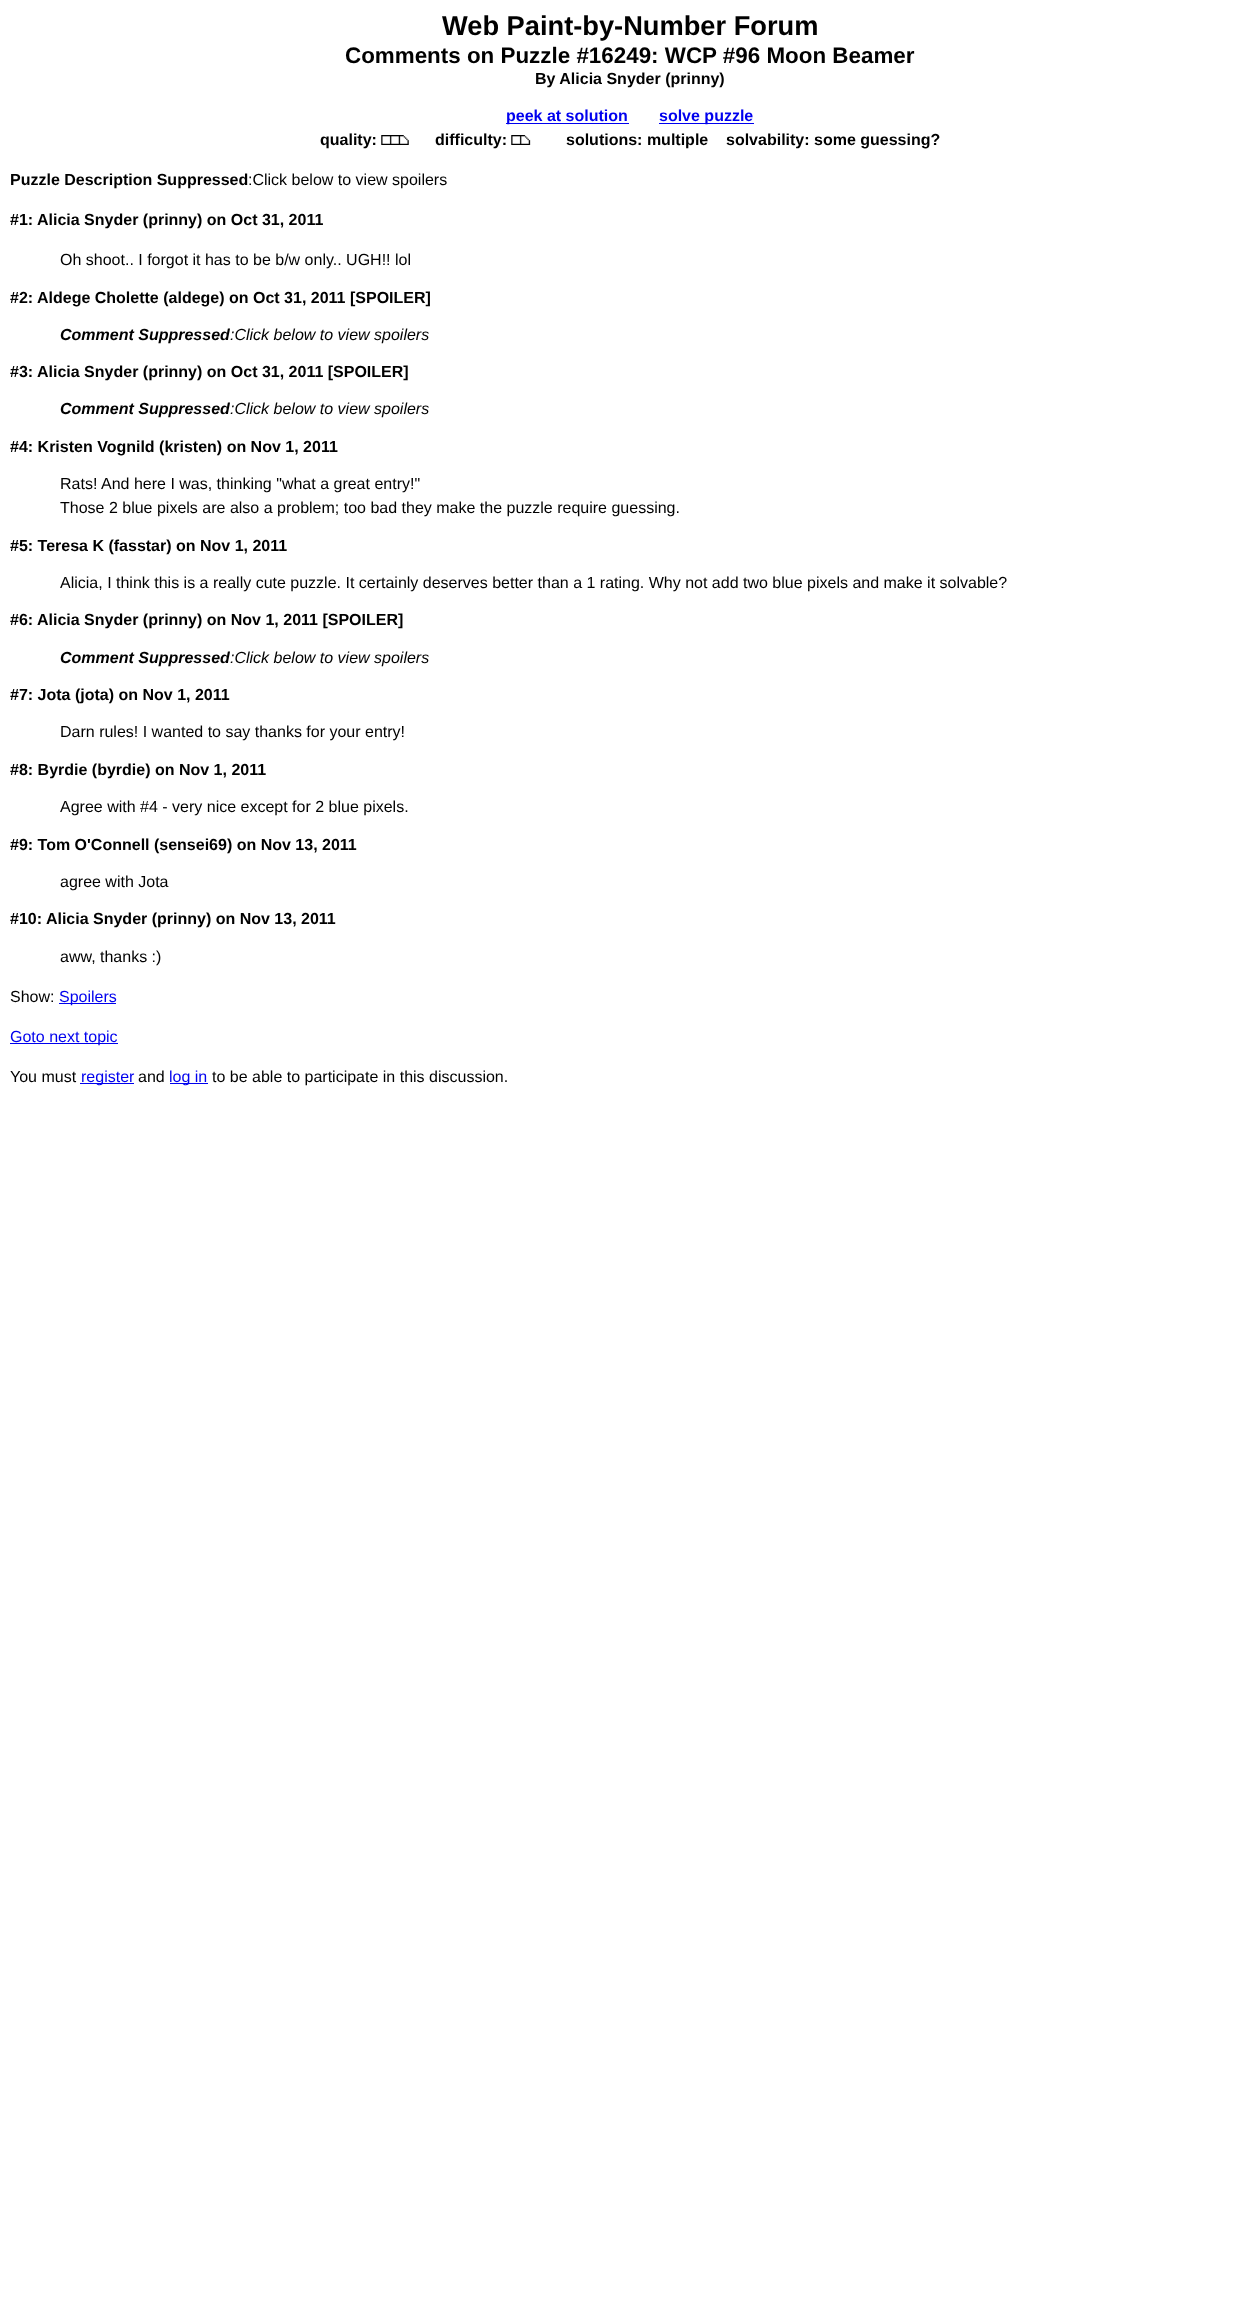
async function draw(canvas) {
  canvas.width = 1260;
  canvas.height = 2322;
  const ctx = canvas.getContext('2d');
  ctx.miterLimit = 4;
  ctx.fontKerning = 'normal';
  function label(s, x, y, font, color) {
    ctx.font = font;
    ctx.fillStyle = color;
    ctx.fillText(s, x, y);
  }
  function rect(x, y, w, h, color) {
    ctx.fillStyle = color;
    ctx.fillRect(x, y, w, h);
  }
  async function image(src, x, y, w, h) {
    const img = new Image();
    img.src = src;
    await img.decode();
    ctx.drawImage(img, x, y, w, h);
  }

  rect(0, 0, 1260, 2322, '#fff');
  label('Web Paint-by-Number Forum', 442, 35, 'bold 27.25px Liberation Sans', '#000');
  label('Comments on Puzzle #16249: WCP #96 Moon Beamer', 345, 63, 'bold 22.4px Liberation Sans', '#000');
  label('By Alicia Snyder (prinny)', 535, 84, 'bold 16px Liberation Sans', '#000');
  rect(506, 123, 123, 1, '#00e');
  label('peek at solution', 506, 121, 'bold 16px Liberation Sans', '#00e');
  rect(659, 123, 95, 1, '#00e');
  label('solve puzzle', 659, 121, 'bold 16px Liberation Sans', '#00e');
  label('quality:', 320, 145, 'bold 16px Liberation Sans', '#000');
  await image('assets/img1.png', 381, 135, 28, 10);
  label('difficulty:', 435, 145, 'bold 16px Liberation Sans', '#000');
  await image('assets/img2.png', 511, 135, 20, 10);
  label('solutions: multiple    solvability: some guessing?', 566, 145, 'bold 16px Liberation Sans', '#000');
  label('Puzzle Description Suppressed', 10, 185, 'bold 16px Liberation Sans', '#000');
  label(':Click below to view spoilers', 248, 185, '16px Liberation Sans', '#000');
  label('#1: Alicia Snyder (prinny) on Oct 31, 2011', 10, 225, 'bold 16px Liberation Sans', '#000');
  label('Oh shoot.. I forgot it has to be b/w only.. UGH!! lol', 60, 265, '16px Liberation Sans', '#000');
  label('#2: Aldege Cholette (aldege) on Oct 31, 2011 [SPOILER]', 10, 303, 'bold 16px Liberation Sans', '#000');
  label('Comment Suppressed', 60, 340, 'italic bold 16px Liberation Sans', '#000');
  label(':Click below to view spoilers', 230, 340, 'italic 16px Liberation Sans', '#000');
  label('#3: Alicia Snyder (prinny) on Oct 31, 2011 [SPOILER]', 10, 377, 'bold 16px Liberation Sans', '#000');
  label('Comment Suppressed', 60, 414, 'italic bold 16px Liberation Sans', '#000');
  label(':Click below to view spoilers', 230, 414, 'italic 16px Liberation Sans', '#000');
  label('#4: Kristen Vognild (kristen) on Nov 1, 2011', 10, 452, 'bold 16px Liberation Sans', '#000');
  label('Rats!', 60, 489, '16px Liberation Sans', '#000');
  label('And here I was, thinking "what a great entry!"', 101, 489, '16px Liberation Sans', '#000');
  label('Those 2 blue pixels are also a problem; too bad they make the puzzle require guessing.', 60, 513, '16px Liberation Sans', '#000');
  label('#5: Teresa K (fasstar) on Nov 1, 2011', 10, 551, 'bold 16px Liberation Sans', '#000');
  label('Alicia, I think this is a really cute puzzle. It certainly deserves better than a 1 rating. Why not add two blue pixels and make it solvable?', 60, 588, '16px Liberation Sans', '#000');
  label('#6: Alicia Snyder (prinny) on Nov 1, 2011 [SPOILER]', 10, 625, 'bold 16px Liberation Sans', '#000');
  label('Comment Suppressed', 60, 663, 'italic bold 16px Liberation Sans', '#000');
  label(':Click below to view spoilers', 230, 663, 'italic 16px Liberation Sans', '#000');
  label('#7: Jota (jota) on Nov 1, 2011', 10, 700, 'bold 16px Liberation Sans', '#000');
  label('Darn rules! I wanted to say thanks for your entry!', 60, 737, '16px Liberation Sans', '#000');
  label('#8: Byrdie (byrdie) on Nov 1, 2011', 10, 775, 'bold 16px Liberation Sans', '#000');
  label('Agree with #4 - very nice except for 2 blue pixels.', 60, 812, '16px Liberation Sans', '#000');
  label('#9: Tom O\'Connell (sensei69) on Nov 13, 2011', 10, 850, 'bold 16px Liberation Sans', '#000');
  label('agree with Jota', 60, 887, '16px Liberation Sans', '#000');
  label('#10: Alicia Snyder (prinny) on Nov 13, 2011', 10, 924, 'bold 16px Liberation Sans', '#000');
  label('aww, thanks :)', 60, 962, '16px Liberation Sans', '#000');
  label('Show:', 10, 1002, '16px Liberation Sans', '#000');
  rect(59, 1003, 57, 1, '#00e');
  label('Spoilers', 59, 1002, '16px Liberation Sans', '#00e');
  rect(10, 1043, 108, 1, '#00e');
  label('Goto next topic', 10, 1042, '16px Liberation Sans', '#00e');
  label('You must', 10, 1082, '16px Liberation Sans', '#000');
  rect(80, 1083, 54, 1, '#00e');
  label('register', 81, 1082, '16px Liberation Sans', '#00e');
  label('and', 138, 1082, '16px Liberation Sans', '#000');
  rect(170, 1083, 38, 1, '#00e');
  label('log in', 169, 1082, '16px Liberation Sans', '#00e');
  label('to be able to participate in this discussion.', 212, 1082, '16px Liberation Sans', '#000');
}

draw(document.querySelector('canvas'));
